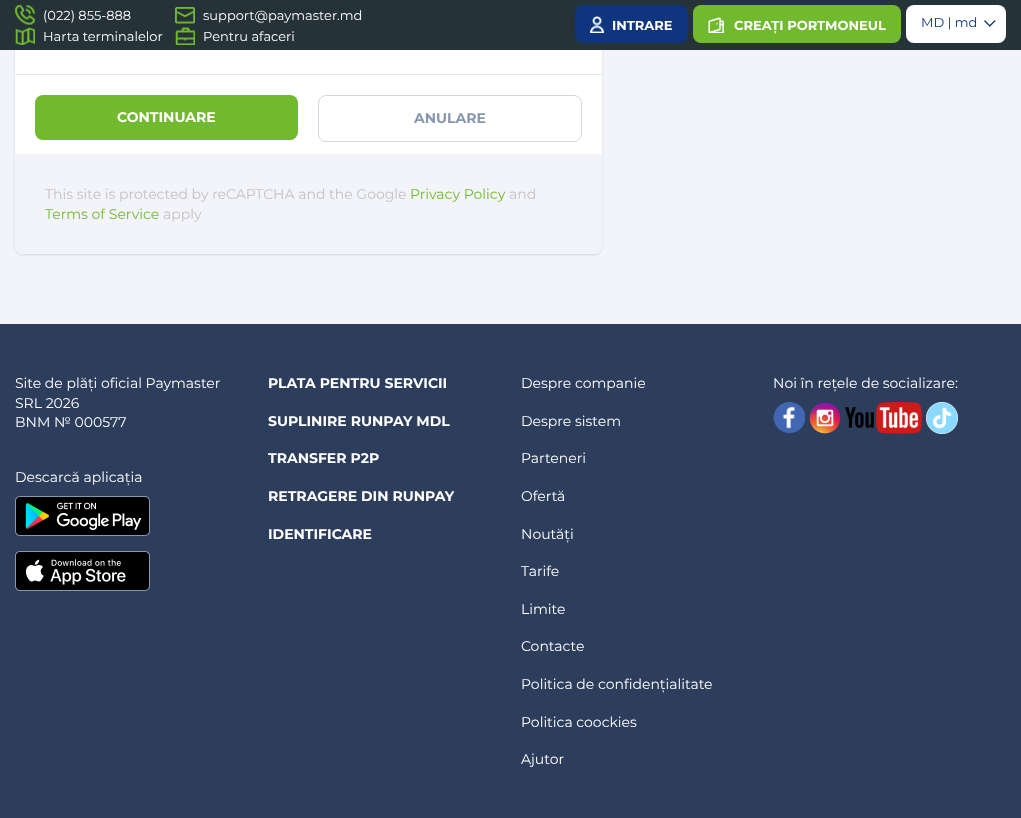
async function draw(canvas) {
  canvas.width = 1021;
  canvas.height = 818;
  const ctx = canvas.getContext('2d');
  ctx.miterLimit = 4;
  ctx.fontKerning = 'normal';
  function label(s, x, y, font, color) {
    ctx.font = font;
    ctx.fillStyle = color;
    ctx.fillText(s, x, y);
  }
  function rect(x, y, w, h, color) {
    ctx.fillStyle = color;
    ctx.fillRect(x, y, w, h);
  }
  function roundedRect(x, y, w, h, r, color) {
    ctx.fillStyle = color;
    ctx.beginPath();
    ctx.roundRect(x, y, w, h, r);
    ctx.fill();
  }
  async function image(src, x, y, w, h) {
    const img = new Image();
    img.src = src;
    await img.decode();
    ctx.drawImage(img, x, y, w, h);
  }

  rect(0, 0, 1021, 818, '#f3f4fa');
  ctx.fillStyle = '#0000001f';
  ctx.filter = 'blur(1px)';
  ctx.beginPath();
  ctx.roundRect(15, -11, 587, 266, 8);
  ctx.fill();
  ctx.filter = 'none';
  roundedRect(15, -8, 587, 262, 8, '#fff');
  rect(0, 0, 1021, 50, '#253238');
  await image('assets/img1.png', 15, 5, 20, 20);
  label('(022) 855-888', 43, 20, '13px Montserrat', '#fff');
  await image('assets/img2.png', 175, 7, 20, 17);
  label('support@paymaster.md', 203, 20, '13px Montserrat', '#fff');
  await image('assets/img3.png', 15, 27, 20, 18);
  label('Harta terminalelor', 43, 41, '13px Montserrat', '#fff');
  await image('assets/img4.png', 175, 27, 20, 18);
  label('Pentru afaceri', 203, 41, '13px Montserrat', '#fff');
  roundedRect(575, 5, 113, 38, 8, '#0e357e');
  await image('assets/img5.png', 590, 16, 14, 17);
  label('INTRARE', 612, 30, 'bold 13px Montserrat', '#fff');
  roundedRect(693, 5, 208, 38, 8, '#71b92f');
  await image('assets/img6.png', 708, 17, 16, 16);
  label('CREAȚI PORTMONEUL', 734, 30, 'bold 13px Montserrat', '#fff');
  roundedRect(906, 5, 100, 38, 8, '#fff');
  label('MD | md', 921, 27, '13px Montserrat', '#0e357e');
  await image('assets/img7.png', 984, 20, 12, 7);
  rect(15, 74, 587, 1, '#dfe7eb');
  roundedRect(35, 95, 263, 45, 8, '#71b92f');
  label('CONTINUARE', 117, 122, 'bold 14px Montserrat', '#fff');
  ctx.beginPath();
  ctx.roundRect(318.5, 95.5, 263, 46, 7.5);
  ctx.strokeStyle = '#d0d9de';
  ctx.stroke();
  label('ANULARE', 414, 123, 'bold 14px Montserrat', '#8797af');
  ctx.fillStyle = '#f3f4fa';
  ctx.beginPath();
  ctx.roundRect(15, 154, 587, 100, [0, 0, 8, 8]);
  ctx.fill();
  label('This site is protected by reCAPTCHA and the Google', 45, 199, '14px Montserrat', '#c3c3c3');
  label('Privacy Policy', 410, 199, '14px Montserrat', '#71b92f');
  label('and', 509, 199, '14px Montserrat', '#c3c3c3');
  label('Terms of Service', 45, 219, '14px Montserrat', '#71b92f');
  label('apply', 163, 219, '14px Montserrat', '#c3c3c3');
  rect(0, 324, 1021, 494, '#2d3d5c');
  label('Site de plăți oficial Paymaster', 15, 388, '14px Montserrat', '#fff');
  label('SRL 2026', 15, 408, '14px Montserrat', '#fff');
  label('BNM № 000577', 15, 427, '14px Montserrat', '#fff');
  label('Descarсă aplicația', 15, 482, '14px Montserrat', '#fff');
  await image('assets/img8.png', 15, 496, 135, 40);
  await image('assets/img9.png', 15, 551, 135, 40);
  label('PLATA PENTRU SERVICII', 268, 388, 'bold 14px Montserrat', '#fff');
  label('SUPLINIRE RUNPAY MDL', 268, 426, 'bold 14px Montserrat', '#fff');
  label('TRANSFER P2P', 268, 463, 'bold 14px Montserrat', '#fff');
  label('RETRAGERE DIN RUNPAY', 268, 501, 'bold 14px Montserrat', '#fff');
  label('IDENTIFICARE', 268, 539, 'bold 14px Montserrat', '#fff');
  label('Despre companie', 521, 388, '14px Montserrat', '#fff');
  label('Despre sistem', 521, 426, '14px Montserrat', '#fff');
  label('Parteneri', 521, 463, '14px Montserrat', '#fff');
  label('Ofertă', 521, 501, '14px Montserrat', '#fff');
  label('Noutăți', 521, 539, '14px Montserrat', '#fff');
  label('Tarife', 521, 576, '14px Montserrat', '#fff');
  label('Limite', 521, 614, '14px Montserrat', '#fff');
  label('Contacte', 521, 651, '14px Montserrat', '#fff');
  label('Politica de confidențialitate', 521, 689, '14px Montserrat', '#fff');
  label('Politica coockies', 521, 727, '14px Montserrat', '#fff');
  label('Ajutor', 521, 764, '14px Montserrat', '#fff');
  label('Noi în rețele de socializare:', 773, 388, '14px Montserrat', '#fff');
  await image('assets/img10.png', 773, 402, 32, 31);
  await image('assets/img11.png', 809, 402, 32, 32);
  await image('assets/img12.png', 845, 402, 77, 32);
  await image('assets/img13.png', 926, 402, 32, 32);
}

draw(document.querySelector('canvas'));
